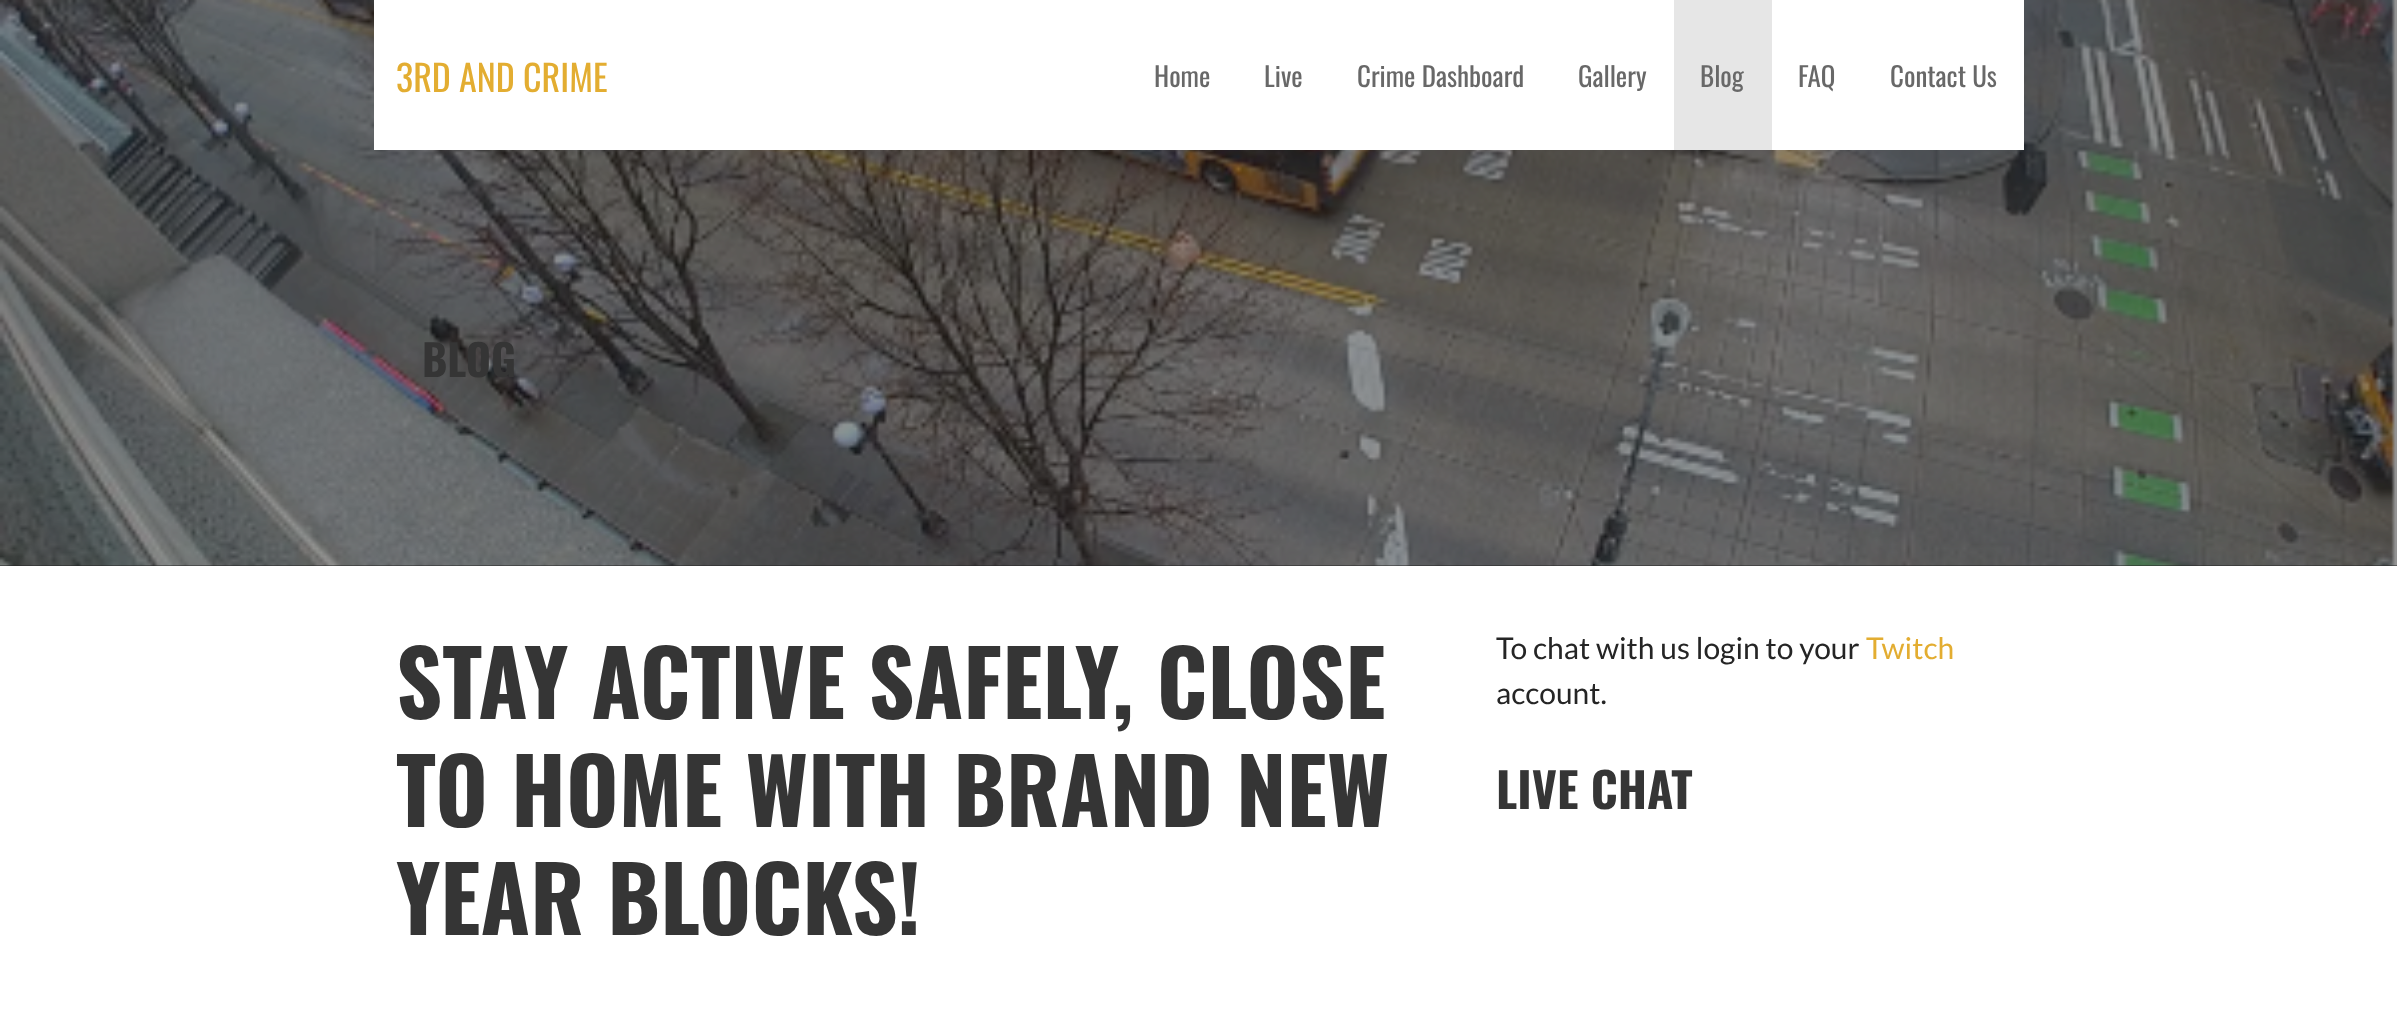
async function draw(canvas) {
  canvas.width = 2397;
  canvas.height = 1016;
  const ctx = canvas.getContext('2d');
  ctx.miterLimit = 4;
  ctx.fontKerning = 'normal';
  function label(s, x, y, font, color) {
    ctx.font = font;
    ctx.fillStyle = color;
    ctx.fillText(s, x, y);
  }
  function rect(x, y, w, h, color) {
    ctx.fillStyle = color;
    ctx.fillRect(x, y, w, h);
  }
  async function image(src, x, y, w, h) {
    const img = new Image();
    img.src = src;
    await img.decode();
    ctx.drawImage(img, x, y, w, h);
  }

  rect(0, 0, 2397, 1016, '#fff');
  rect(0, 565, 2397, 1, '#252525');
  await image('assets/img1.png', 0, 0, 2397, 566);
  rect(374, 0, 1650, 150, '#fff');
  label('3RD AND CRIME', 396, 92, '36px Oswald', '#e3ad31');
  label('Home', 1154, 87, '27px Oswald', '#686868');
  label('Live', 1264, 87, '27px Oswald', '#686868');
  label('Crime Dashboard', 1357, 87, '27px Oswald', '#686868');
  label('Gallery', 1578, 87, '27px Oswald', '#686868');
  rect(1674, 0, 98, 150, '#e6e6e6');
  label('Blog', 1700, 87, '27px Oswald', '#686868');
  label('FAQ', 1798, 87, '27px Oswald', '#686868');
  label('Contact Us', 1890, 87, '27px Oswald', '#686868');
  label('BLOG', 422, 377, 'bold 43px Oswald', '#353535');
  label('STAY ACTIVE SAFELY, CLOSE', 396, 719, 'bold 90px Oswald', '#353535');
  label('TO HOME WITH BRAND NEW', 396, 827, 'bold 90px Oswald', '#353535');
  label('YEAR BLOCKS!', 396, 935, 'bold 90px Oswald', '#353535');
  label('To chat with us login to your', 1496, 659, '30px Lato', '#252525');
  label('Twitch', 1866, 659, '30px Lato', '#e3ad31');
  label('account.', 1496, 704, '30px Lato', '#252525');
  label('LIVE CHAT', 1496, 809, 'bold 48px Oswald', '#353535');
}

draw(document.querySelector('canvas'));
